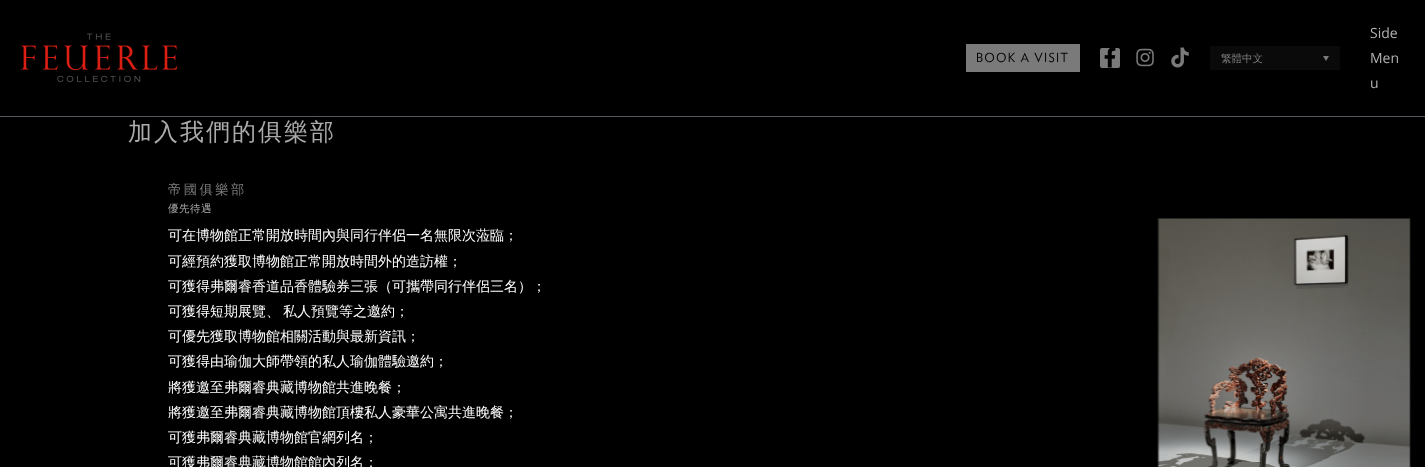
async function draw(canvas) {
  canvas.width = 1425;
  canvas.height = 467;
  const ctx = canvas.getContext('2d');
  ctx.miterLimit = 4;
  ctx.fontKerning = 'normal';
  function label(s, x, y, font, color) {
    ctx.font = font;
    ctx.fillStyle = color;
    ctx.fillText(s, x, y);
  }
  function rect(x, y, w, h, color) {
    ctx.fillStyle = color;
    ctx.fillRect(x, y, w, h);
  }
  function roundedRect(x, y, w, h, r, color) {
    ctx.fillStyle = color;
    ctx.beginPath();
    ctx.roundRect(x, y, w, h, r);
    ctx.fill();
  }
  async function image(src, x, y, w, h) {
    const img = new Image();
    img.src = src;
    await img.decode();
    ctx.drawImage(img, x, y, w, h);
  }
  let path;

  rect(0, 0, 1425, 467, '#000');
  rect(0, 116, 1425, 1, '#54595f');
  await image('assets/img1.png', 21, 33, 157, 50);
  rect(966, 44, 114, 28, '#7a7a7a');
  ctx.letterSpacing = '1.25px';
  label('BOOK A VISIT', 976, 62, '12.5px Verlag', '#000');
  roundedRect(1100, 48, 20, 20, 2, '#7a7a7a');
  await image('assets/img2.png', 1104, 48, 12, 20);
  await image('assets/img3.png', 1136, 48, 18, 19);
  await image('assets/img4.png', 1171, 47, 18, 21);
  rect(1210, 46, 130, 24, '#0a0a0a');
  ctx.letterSpacing = '0px';
  label('繁體中文', 1221, 62, '500 10.5px WenQuanYi Zen Hei', '#7a7a7a');
  path = new Path2D('M1323 56H1329L1326 61Z');
  ctx.fill(path);
  label('Side', 1370, 38, '14px Open Sans', '#b2b2b2');
  label('Men', 1370, 63, '14px Open Sans', '#b2b2b2');
  label('u', 1370, 88, '14px Open Sans', '#b2b2b2');
  ctx.letterSpacing = '2px';
  label('加入我們的俱樂部', 128, 140, '500 24px WenQuanYi Zen Hei', '#ababab');
  ctx.letterSpacing = '2.5px';
  label('帝國俱樂部', 168, 194, '500 13.25px WenQuanYi Zen Hei', '#7a7a7a');
  ctx.letterSpacing = '0.5px';
  label('優先待遇', 168, 212, '500 10.5px WenQuanYi Zen Hei', '#ababab');
  ctx.letterSpacing = '0px';
  label('可在博物館正常開放時間內與同行伴侶一名無限次蒞臨；', 168, 240, '500 14px WenQuanYi Zen Hei', '#fff');
  label('可經預約獲取博物館正常開放時間外的造訪權；', 168, 266, '500 14px WenQuanYi Zen Hei', '#fff');
  label('可獲得弗爾睿香道品香體驗券三張（可攜帶同行伴侶三名）；', 168, 291, '500 14px WenQuanYi Zen Hei', '#fff');
  label('可獲得短期展覽、', 168, 316, '500 14px WenQuanYi Zen Hei', '#fff');
  label('私人預覽等之邀約；', 283, 316, '500 14px WenQuanYi Zen Hei', '#fff');
  label('可優先獲取博物館相關活動與最新資訊；', 168, 341, '500 14px WenQuanYi Zen Hei', '#fff');
  label('可獲得由瑜伽大師帶領的私人瑜伽體驗邀約；', 168, 366, '500 14px WenQuanYi Zen Hei', '#fff');
  label('將獲邀至弗爾睿典藏博物館共進晚餐；', 168, 392, '500 14px WenQuanYi Zen Hei', '#fff');
  label('將獲邀至弗爾睿典藏博物館頂樓私人豪華公寓共進晚餐；', 168, 417, '500 14px WenQuanYi Zen Hei', '#fff');
  label('可獲弗爾睿典藏博物館官網列名；', 168, 442, '500 14px WenQuanYi Zen Hei', '#fff');
  label('可獲弗爾睿典藏博物館館內列名；', 168, 467, '500 14px WenQuanYi Zen Hei', '#fff');
  await image('assets/img5.png', 1157, 218, 254, 249);
}

draw(document.querySelector('canvas'));
